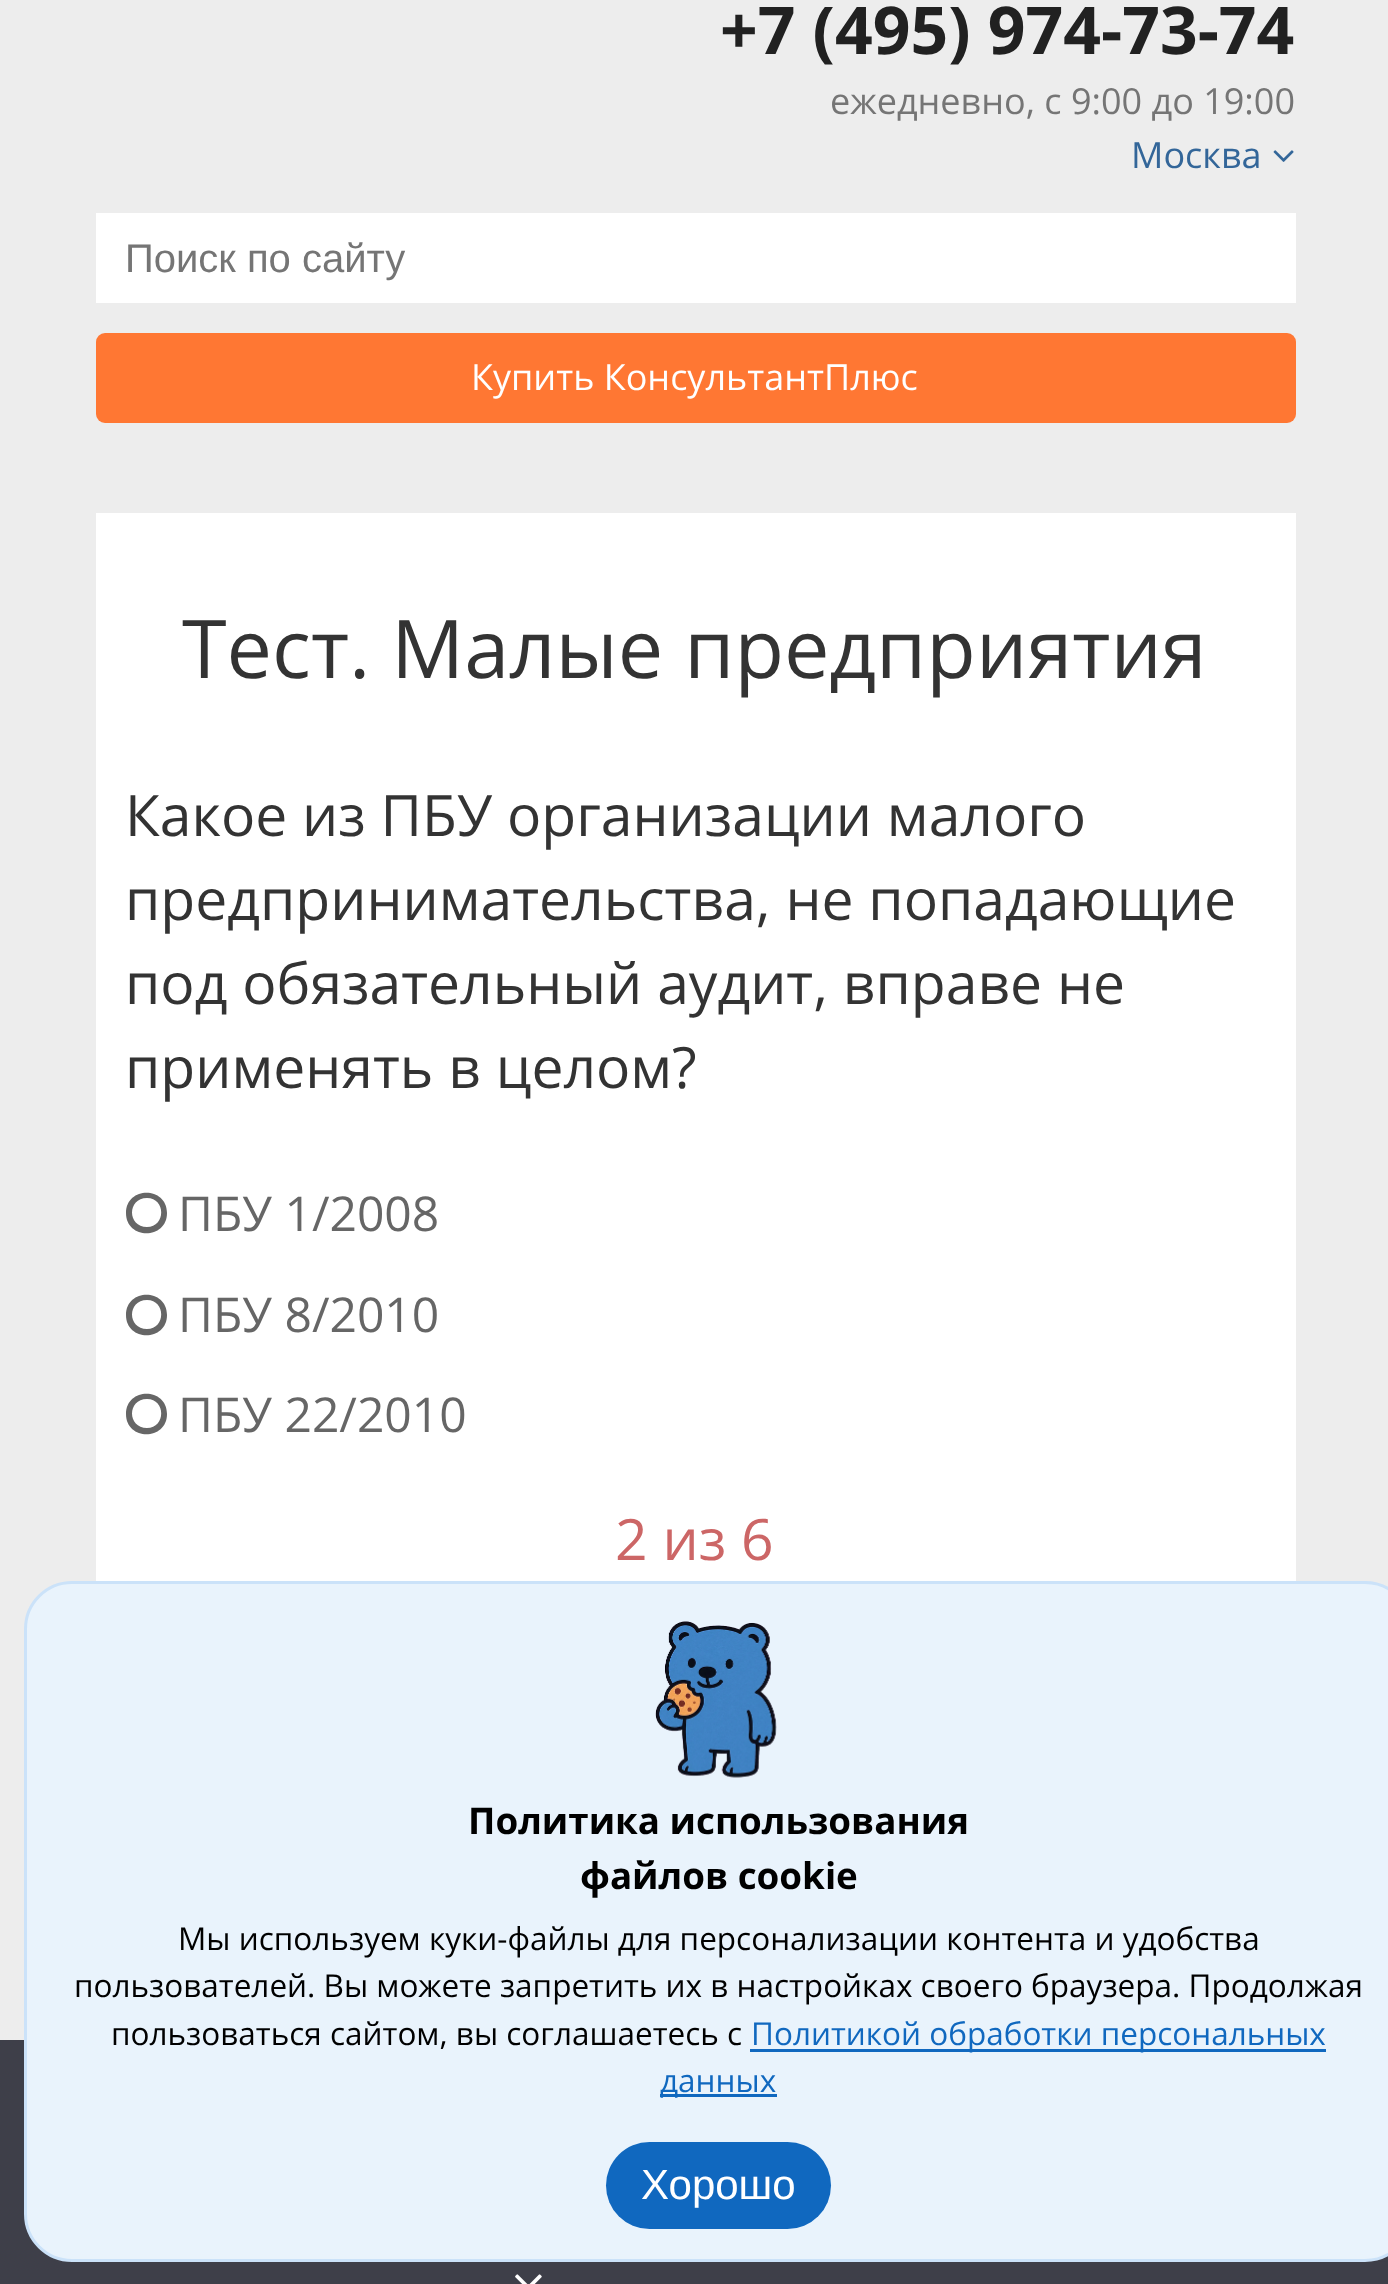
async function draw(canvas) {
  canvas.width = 1388;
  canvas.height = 2284;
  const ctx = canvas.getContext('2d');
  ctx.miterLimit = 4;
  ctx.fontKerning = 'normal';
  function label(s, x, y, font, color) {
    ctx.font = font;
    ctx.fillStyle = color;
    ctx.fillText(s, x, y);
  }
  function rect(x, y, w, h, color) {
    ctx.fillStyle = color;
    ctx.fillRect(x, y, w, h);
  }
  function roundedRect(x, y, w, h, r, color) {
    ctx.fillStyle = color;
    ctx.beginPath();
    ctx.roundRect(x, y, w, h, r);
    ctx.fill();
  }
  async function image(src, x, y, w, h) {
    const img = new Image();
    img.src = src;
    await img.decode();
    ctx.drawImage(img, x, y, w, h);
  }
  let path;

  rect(0, 0, 1388, 2284, '#ededed');
  label('+7 (495) 974-73-74', 720, 54, 'bold 66px Open Sans', '#212121');
  label('ежедневно, c 9:00 до 19:00', 830, 114, '36px Open Sans', '#757575');
  label('Москва', 1131, 168, '36px Open Sans', '#369');
  await image('assets/img1.png', 1273, 150, 21, 12);
  rect(96, 213, 1200, 90, '#fff');
  label('Поиск по сайту', 125, 272, '40px Liberation Sans', '#757575');
  roundedRect(96, 333, 1200, 90, 9, '#f73');
  label('Купить КонсультантПлюс', 471, 390, '36px Open Sans', '#fff');
  rect(96, 513, 1200, 1068, '#fff');
  label('Тест. Малые предприятия', 182, 678, '81px Open Sans', '#333');
  label('Какое из ПБУ организации малого', 125, 836, '57px Open Sans', '#333');
  label('предпринимательства, не попадающие', 125, 920, '57px Open Sans', '#333');
  label('под обязательный аудит, вправе не', 125, 1004, '57px Open Sans', '#333');
  label('применять в целом?', 125, 1088, '57px Open Sans', '#333');
  ctx.fillStyle = '#666';
  path = new Path2D('M147 1198C166 1198 166 1227 147 1227C127 1227 127 1198 147 1198ZM167 1213C167 1186 126 1186 126 1213C126 1240 167 1240 167 1213Z');
  ctx.fill(path);
  label('ПБУ 1/2008', 178, 1231, '48px Open Sans', '#666');
  path = new Path2D('M147 1300C166 1300 166 1329 147 1329C127 1329 127 1300 147 1300ZM167 1315C167 1288 126 1288 126 1315C126 1342 167 1342 167 1315Z');
  ctx.fill(path);
  label('ПБУ 8/2010', 178, 1332, '48px Open Sans', '#666');
  path = new Path2D('M147 1399C166 1399 166 1428 147 1428C127 1428 127 1399 147 1399ZM167 1414C167 1387 126 1387 126 1414C126 1441 167 1441 167 1414Z');
  ctx.fill(path);
  label('ПБУ 22/2010', 178, 1432, '48px Open Sans', '#666');
  label('2 из 6', 615, 1560, '57px Open Sans', '#c66');
  rect(0, 2040, 1388, 244, '#3e3f49');
  ctx.fillStyle = '#808080';
  ctx.filter = 'blur(7.5px)';
  ctx.beginPath();
  ctx.roundRect(1179, 2064, 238, 180, 6);
  ctx.fill();
  ctx.filter = 'none';
  ctx.fillStyle = '#e9f3fc';
  ctx.beginPath();
  ctx.roundRect(25.5, 1582.5, 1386, 678, 46.5);
  ctx.fill();
  ctx.strokeStyle = '#cbe2f9';
  ctx.lineWidth = 3;
  ctx.stroke();
  await image('assets/img2.png', 655, 1621, 122, 157);
  label('Политика использования', 468, 1834, 'bold 36.75px Open Sans', '#000');
  label('файлов cookie', 580, 1889, 'bold 36.75px Open Sans', '#000');
  label('Мы используем куки-файлы для персонализации контента и удобства', 178, 1950, '31.5px Open Sans', '#000');
  label('пользователей. Вы можете запретить их в настройках своего браузера. Продолжая', 74, 1997, '31.5px Open Sans', '#000');
  label('пользоваться сайтом, вы соглашаетесь с', 111, 2045, '31.5px Open Sans', '#000');
  rect(750, 2049, 576, 3, '#1068bf');
  label('Политикой обработки персональных', 751, 2045, '31.5px Open Sans', '#1068bf');
  rect(660, 2094, 117, 3, '#1068bf');
  label('данных', 660, 2092, '31.5px Open Sans', '#1068bf');
  roundedRect(606, 2142, 225, 87, 43.5, '#1068bf');
  label('Хорошо', 641, 2199, '42px Liberation Sans', '#fff');
  await image('assets/img3.png', 515, 2274, 27, 10);
}

draw(document.querySelector('canvas'));
